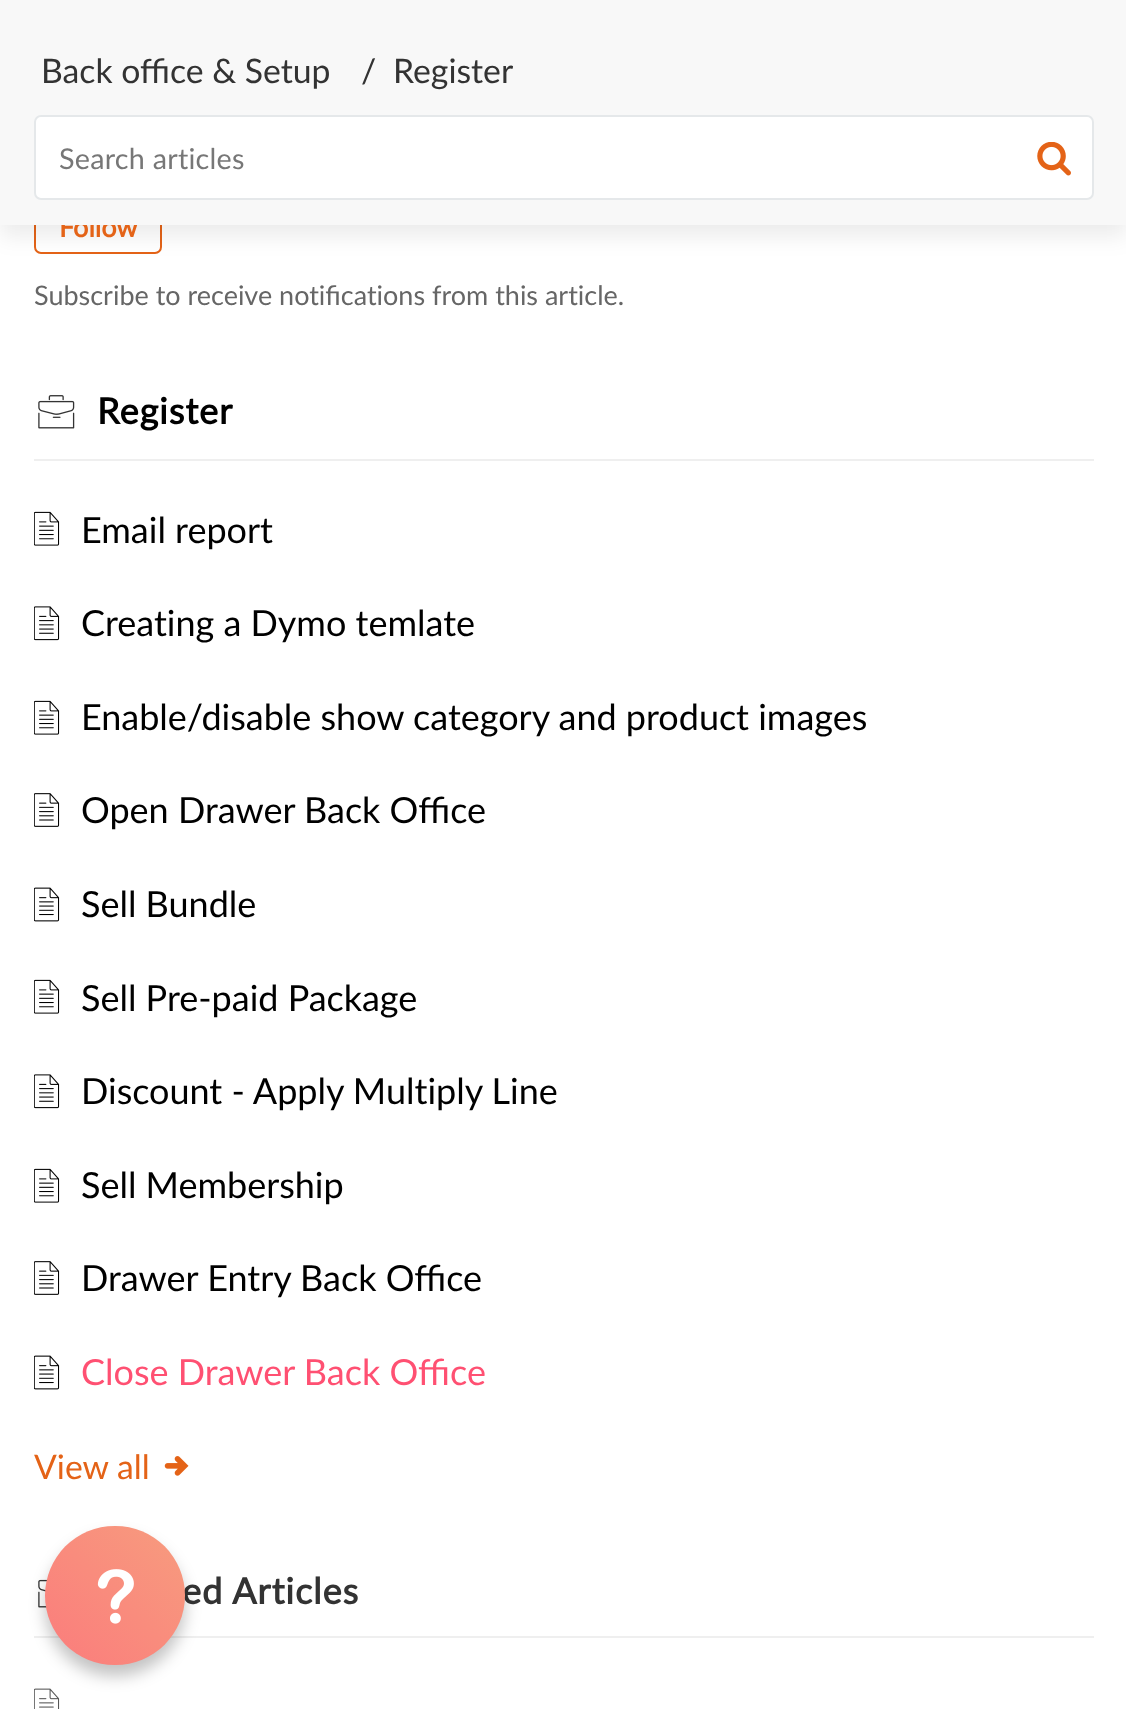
async function draw(canvas) {
  canvas.width = 1126;
  canvas.height = 1709;
  const ctx = canvas.getContext('2d');
  ctx.miterLimit = 4;
  ctx.fontKerning = 'normal';
  function label(s, x, y, font, color) {
    ctx.font = font;
    ctx.fillStyle = color;
    ctx.fillText(s, x, y);
  }
  function rect(x, y, w, h, color) {
    ctx.fillStyle = color;
    ctx.fillRect(x, y, w, h);
  }
  async function image(src, x, y, w, h) {
    const img = new Image();
    img.src = src;
    await img.decode();
    ctx.drawImage(img, x, y, w, h);
  }
  let gradient;

  rect(0, 0, 1126, 1709, '#fff');
  ctx.beginPath();
  ctx.roundRect(35, 199, 126, 54, 6);
  ctx.strokeStyle = '#e46317';
  ctx.lineWidth = 2;
  ctx.stroke();
  ctx.fillStyle = '#00000014';
  ctx.filter = 'blur(11px)';
  ctx.beginPath();
  ctx.rect(0, 11, 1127, 225);
  ctx.fill();
  ctx.filter = 'none';
  label('Follow', 59, 237, 'bold 27px Lato', '#e46317');
  rect(0, 0, 1126, 225, '#f8f8f8');
  label('Back office & Setup', 41, 83, '33.75px Lato', '#333');
  label('/', 361, 83, '33.75px Lato', '#333');
  label('Register', 393, 83, '33.75px Lato', '#333');
  ctx.fillStyle = '#fff';
  ctx.beginPath();
  ctx.roundRect(35, 116, 1058, 83, 6);
  ctx.fill();
  ctx.strokeStyle = '#e5e8ea';
  ctx.stroke();
  ctx.letterSpacing = '0.25px';
  label('Search articles', 59, 169, '28.75px Lato', '#777');
  await image('assets/img1.png', 1037, 142, 34, 34);
  ctx.letterSpacing = '0px';
  label('Subscribe to receive notifications from this article.', 34, 305, '27px Lato', '#666');
  rect(34, 459, 1060, 2, '#efefef');
  await image('assets/img2.png', 38, 395, 37, 34);
  ctx.letterSpacing = '1px';
  label('Register', 97, 424, 'bold 36px Lato', '#000');
  await image('assets/img3.png', 34, 511, 26, 35);
  ctx.letterSpacing = '0px';
  label('Email report', 81, 543, '36px Lato', '#000');
  await image('assets/img4.png', 34, 606, 26, 35);
  label('Creating a Dymo temlate', 81, 636, '36px Lato', '#000');
  await image('assets/img3.png', 34, 700, 26, 35);
  label('Enable/disable show category and product images', 81, 730, '36px Lato', '#000');
  await image('assets/img5.png', 34, 793, 26, 34);
  label('Open Drawer Back Office', 81, 823, '36px Lato', '#000');
  await image('assets/img6.png', 34, 887, 26, 35);
  label('Sell Bundle', 81, 917, '36px Lato', '#000');
  await image('assets/img3.png', 34, 979, 26, 35);
  label('Sell Pre-paid Package', 81, 1011, '36px Lato', '#000');
  await image('assets/img4.png', 34, 1074, 26, 35);
  label('Discount - Apply Multiply Line', 81, 1104, '36px Lato', '#000');
  await image('assets/img3.png', 34, 1168, 26, 35);
  label('Sell Membership', 81, 1198, '36px Lato', '#000');
  await image('assets/img5.png', 34, 1261, 26, 34);
  label('Drawer Entry Back Office', 81, 1291, '36px Lato', '#000');
  await image('assets/img6.png', 34, 1355, 26, 35);
  label('Close Drawer Back Office', 81, 1385, '36px Lato', '#ff5072');
  label('View all', 34, 1479, '33.75px Lato', '#e46317');
  await image('assets/img7.png', 164, 1456, 25, 20);
  rect(34, 1636, 1060, 2, '#efefef');
  await image('assets/img8.png', 38, 1575, 11, 33);
  ctx.letterSpacing = '1px';
  label('ed', 182, 1604, 'bold 36px Lato', '#333');
  label('Articles', 232, 1604, 'bold 36px Lato', '#333');
  await image('assets/img9.png', 34, 1688, 26, 21);
  ctx.fillStyle = '#0000003d';
  ctx.filter = 'blur(8px)';
  ctx.beginPath();
  ctx.roundRect(45, 1537, 140, 139, 69.5);
  ctx.fill();
  ctx.filter = 'none';
  gradient = ctx.createLinearGradient(45, 1665, 185, 1526);
  gradient.addColorStop(0, '#fb7c7c');
  gradient.addColorStop(1, '#f79c7e');
  ctx.fillStyle = gradient;
  ctx.beginPath();
  ctx.roundRect(45, 1526, 140, 139, 69.5);
  ctx.fill();
  await image('assets/img10.png', 97, 1569, 37, 55);
}

draw(document.querySelector('canvas'));
